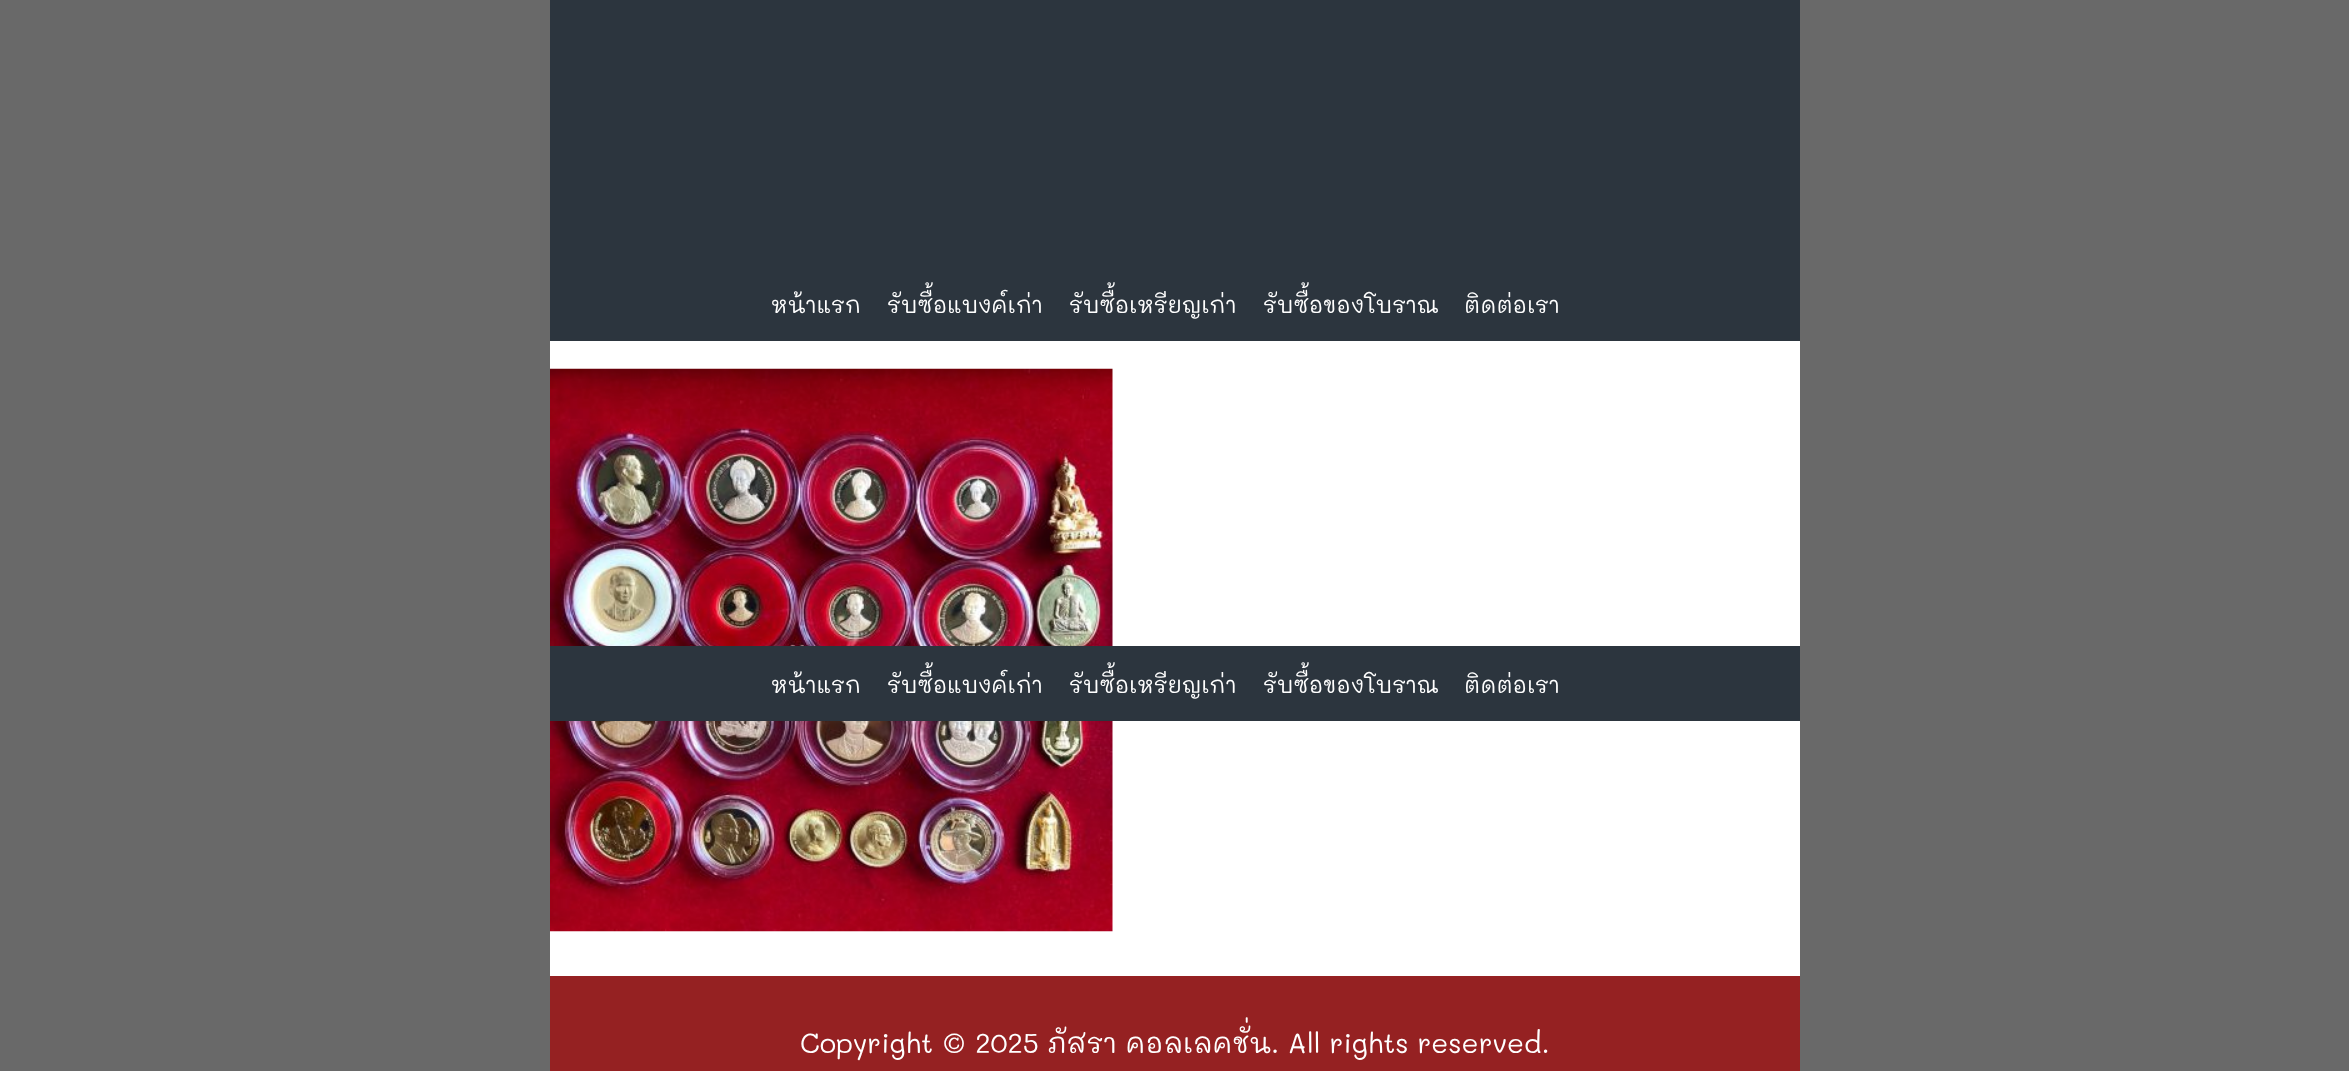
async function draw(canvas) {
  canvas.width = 2349;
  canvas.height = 1071;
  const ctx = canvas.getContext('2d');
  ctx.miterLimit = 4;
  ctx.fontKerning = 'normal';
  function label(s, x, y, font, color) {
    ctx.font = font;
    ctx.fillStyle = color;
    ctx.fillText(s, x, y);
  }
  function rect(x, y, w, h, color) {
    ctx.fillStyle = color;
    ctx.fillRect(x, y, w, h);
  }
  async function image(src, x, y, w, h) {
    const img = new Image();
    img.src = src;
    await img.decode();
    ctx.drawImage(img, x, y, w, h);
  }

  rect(0, 0, 2349, 1071, '#696969');
  rect(550, 341, 1250, 635, '#fff');
  rect(550, 0, 1250, 341, '#2c353e');
  label('หน้าแรก', 771, 313, '22.5px Mali', '#fff');
  label('รับซื้อแบงค์เก่า', 887, 313, '22.5px Mali', '#fff');
  label('รับซื้อเหรียญเก่า', 1069, 313, '22.5px Mali', '#fff');
  label('รับซื้อของโบราณ', 1263, 313, '22.5px Mali', '#fff');
  label('ติดต่อเรา', 1464, 313, '22.5px Mali', '#fff');
  await image('assets/img1.png', 550, 368, 563, 564);
  rect(550, 646, 1250, 75, '#2c353e');
  label('หน้าแรก', 771, 693, '22.5px Mali', '#fff');
  label('รับซื้อแบงค์เก่า', 887, 693, '22.5px Mali', '#fff');
  label('รับซื้อเหรียญเก่า', 1069, 693, '22.5px Mali', '#fff');
  label('รับซื้อของโบราณ', 1263, 693, '22.5px Mali', '#fff');
  label('ติดต่อเรา', 1464, 693, '22.5px Mali', '#fff');
  rect(550, 976, 1250, 95, '#952122');
  label('Copyright © 2025 ภัสรา คอลเลคชั่น. All rights reserved.', 800, 1053, '27.5px Mali', '#fff');
}

draw(document.querySelector('canvas'));
